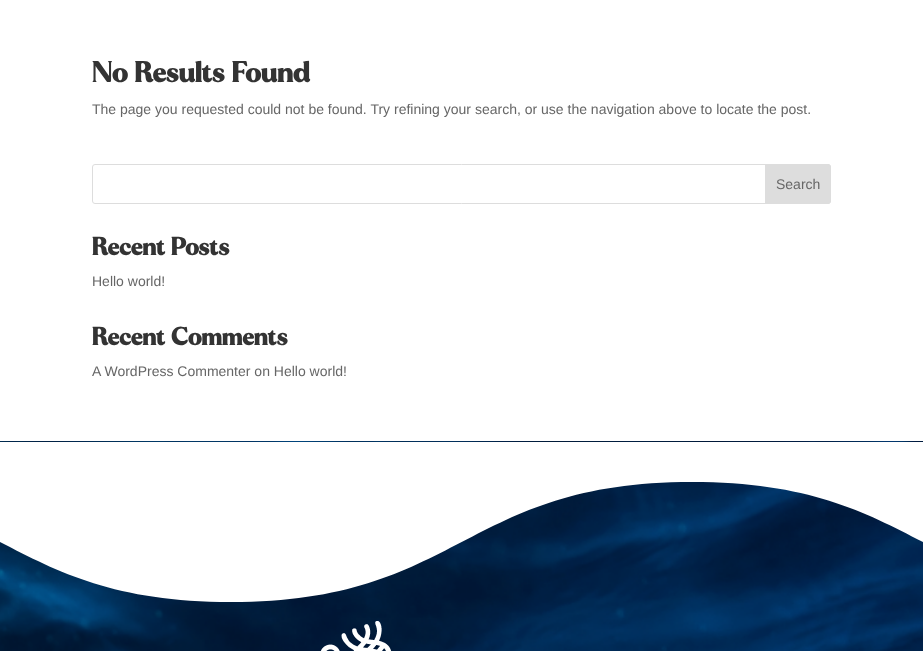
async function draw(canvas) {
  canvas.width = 923;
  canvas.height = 651;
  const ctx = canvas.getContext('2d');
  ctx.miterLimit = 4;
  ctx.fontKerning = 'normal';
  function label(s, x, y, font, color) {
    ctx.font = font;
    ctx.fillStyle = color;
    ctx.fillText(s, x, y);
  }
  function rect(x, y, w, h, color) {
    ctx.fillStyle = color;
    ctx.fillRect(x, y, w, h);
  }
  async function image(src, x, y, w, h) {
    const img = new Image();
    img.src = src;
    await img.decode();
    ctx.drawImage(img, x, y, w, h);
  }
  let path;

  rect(0, 0, 923, 651, '#fff');
  label('No Results Found', 92, 82, '600 30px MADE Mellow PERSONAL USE', '#333');
  label('The page you requested could not be found. Try refining your search, or use the navigation above to locate the post.', 92, 114, '14px Liberation Sans', '#666');
  ctx.beginPath();
  ctx.roundRect(92.5, 164.5, 738, 39, 2.5);
  ctx.strokeStyle = '#ddd';
  ctx.stroke();
  ctx.fillStyle = '#ddd';
  ctx.beginPath();
  ctx.roundRect(765.5, 164.5, 65, 39, [0, 2.5, 2.5, 0]);
  ctx.fill();
  ctx.stroke();
  label('Search', 776, 189, '14px Liberation Sans', '#666');
  label('Recent Posts', 92, 255, '600 26px MADE Mellow PERSONAL USE', '#333');
  label('Hello world!', 92, 286, '14px Liberation Sans', '#666');
  label('Recent Comments', 92, 345, '600 26px MADE Mellow PERSONAL USE', '#333');
  label('A WordPress Commenter on Hello world!', 92, 376, '14px Liberation Sans', '#666');
  await image('assets/img1.png', 0, 441, 923, 210);
  ctx.fillStyle = '#fff';
  path = new Path2D('M231 602C462 602 462 482 692 482C808 482 865 512 923 542V442H0V542C58 572 115 602 231 602Z');
  ctx.fill(path);
  await image('assets/img2.png', 321, 621, 70, 30);
}

draw(document.querySelector('canvas'));
